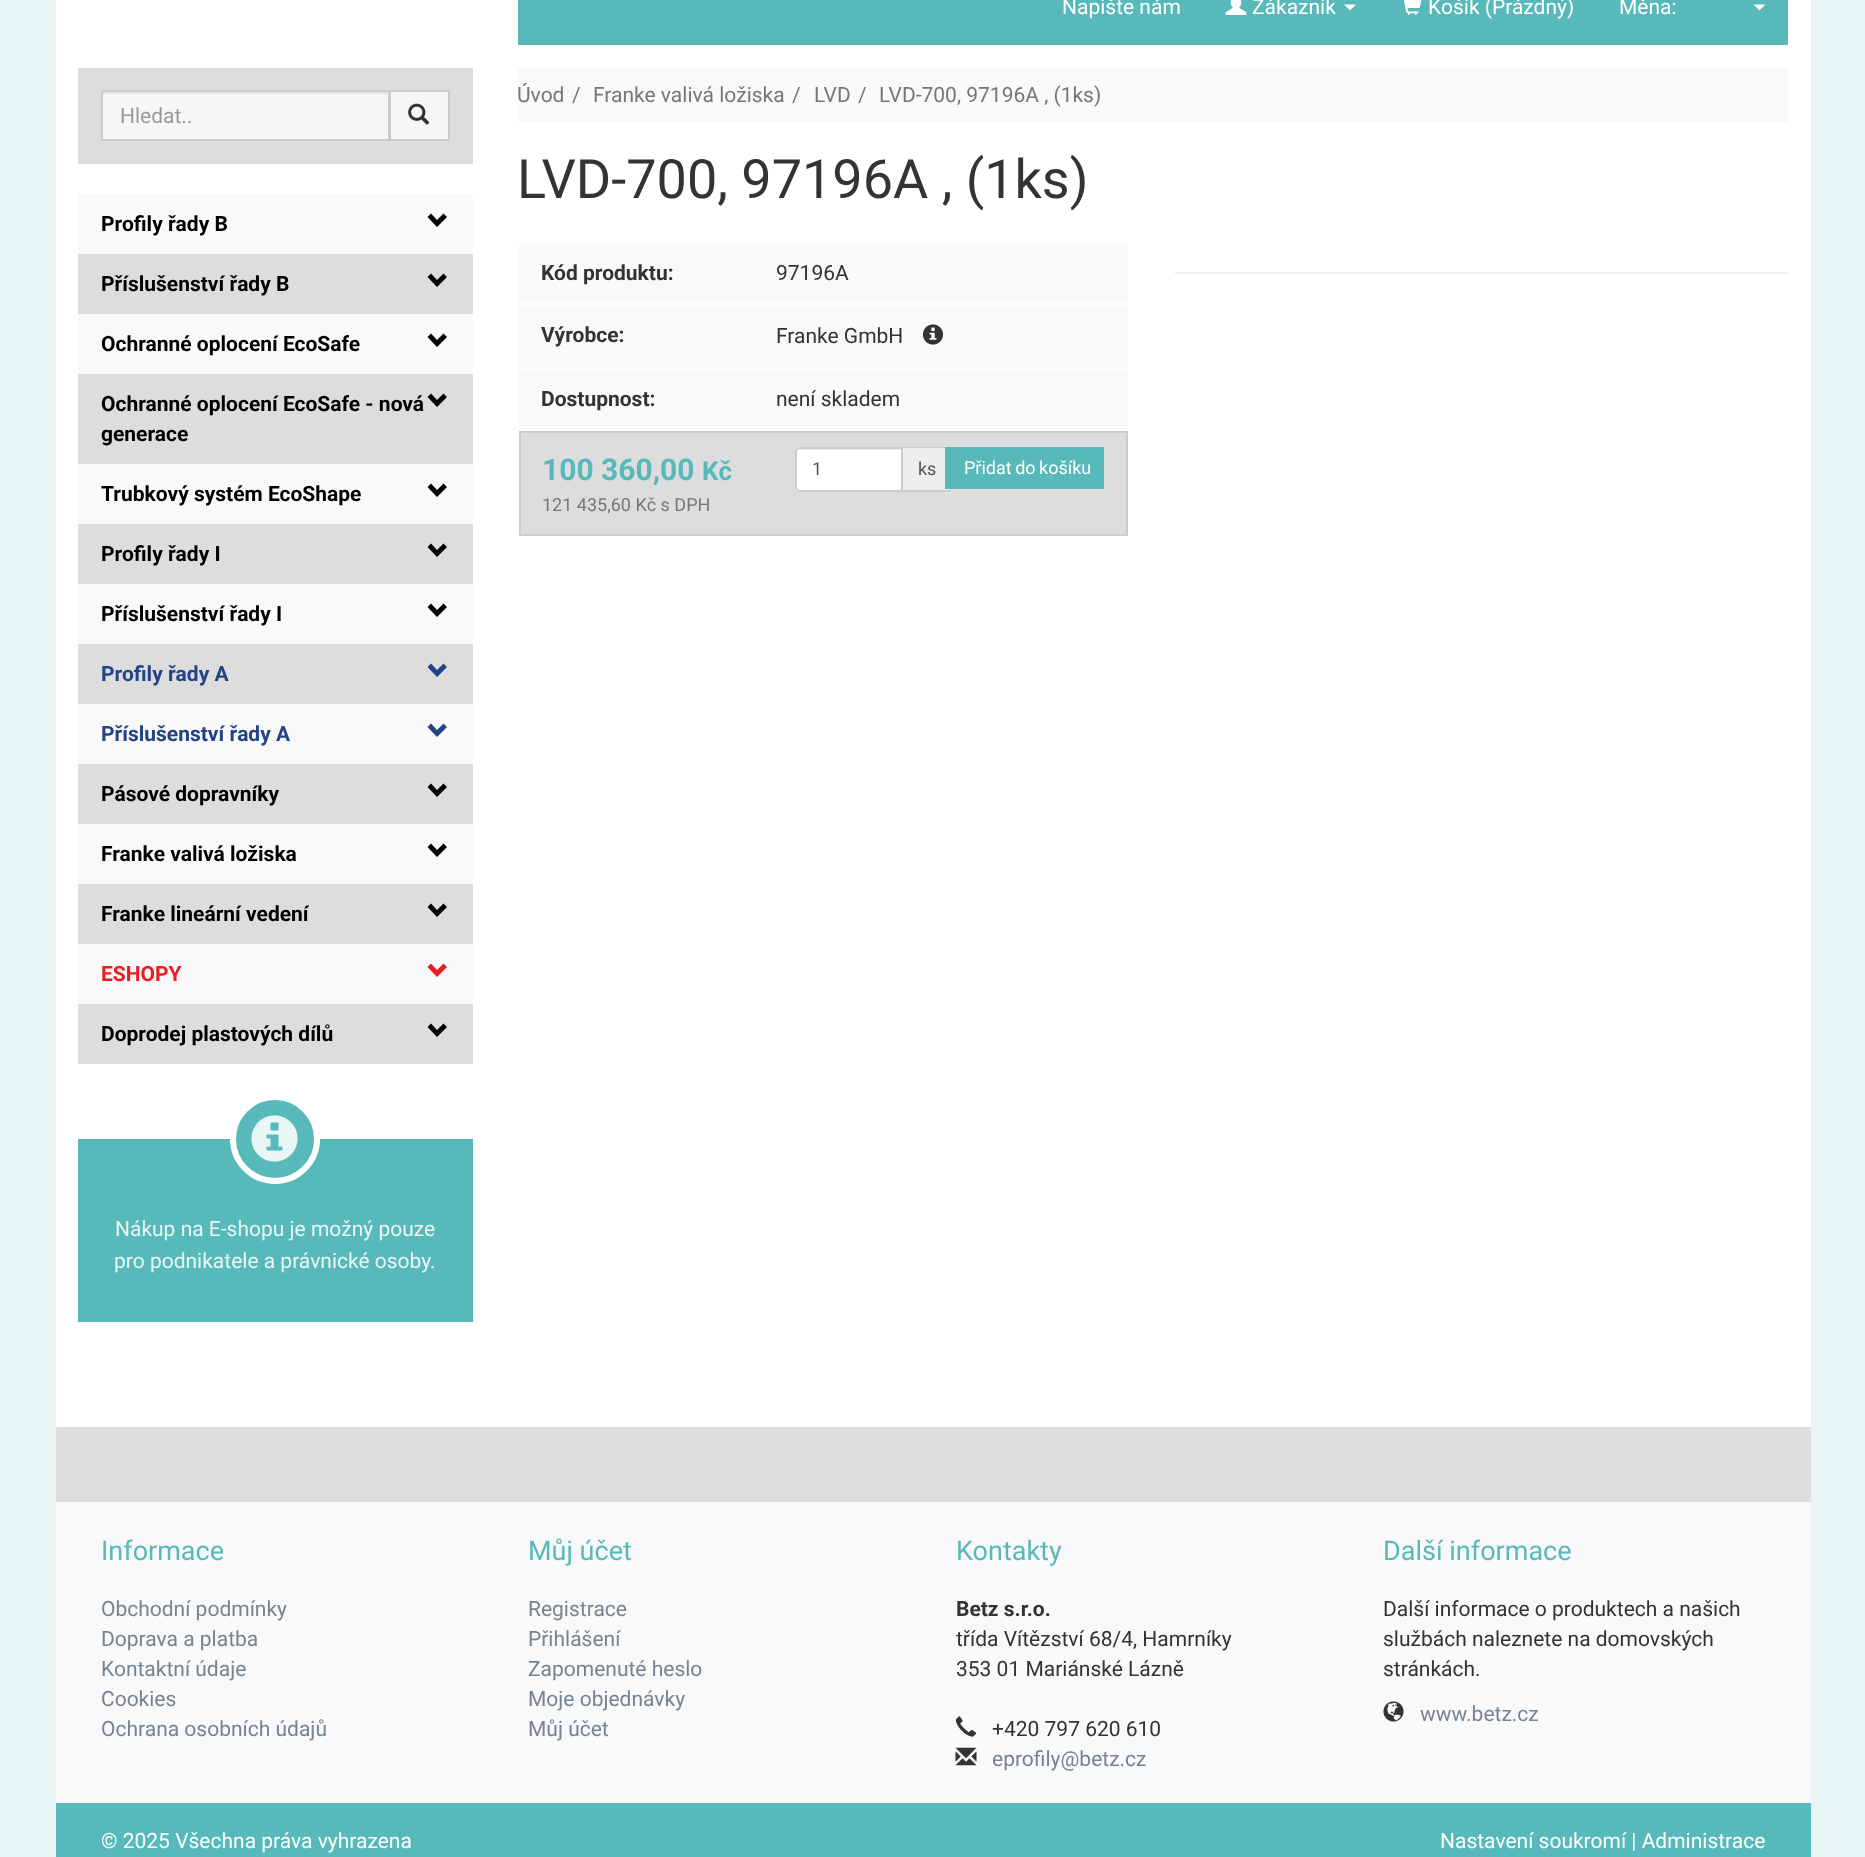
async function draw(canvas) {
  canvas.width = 1865;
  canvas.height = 1857;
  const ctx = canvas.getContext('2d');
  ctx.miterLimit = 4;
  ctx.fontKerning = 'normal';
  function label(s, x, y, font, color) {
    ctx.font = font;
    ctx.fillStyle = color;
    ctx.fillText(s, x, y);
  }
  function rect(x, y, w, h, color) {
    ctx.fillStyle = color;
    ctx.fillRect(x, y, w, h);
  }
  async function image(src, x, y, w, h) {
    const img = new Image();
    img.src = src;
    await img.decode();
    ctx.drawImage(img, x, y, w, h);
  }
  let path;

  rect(0, 0, 1865, 1857, '#e7f5f5');
  rect(56, 0, 1755, 1427, '#fff');
  rect(518, 0, 1270, 45, '#57b9ba');
  label('Napište nám', 1062, 14, '21px Roboto', '#fff');
  await image('assets/img1.png', 1225, 0, 22, 15);
  label('Zákazník', 1252, 14, '21px Roboto', '#fff');
  path = new Path2D('M1344 4.5H1356L1350 10.5Z');
  ctx.fill(path);
  await image('assets/img2.png', 1403, 0, 19, 15);
  label('Košík (Prázdný)', 1428, 14, '21px Roboto', '#fff');
  label('Měna:', 1619, 14, '21px Roboto', '#fff');
  path = new Path2D('M1753.5 4.5H1765.5L1759.5 10.5Z');
  ctx.fill(path);
  rect(78, 68, 395, 96, '#ddd');
  rect(103, 94, 285, 45, '#f7f7f7');
  rect(102, 92, 287, 2, '#e4e4e4');
  ctx.strokeStyle = '#ccc';
  ctx.lineWidth = 2;
  ctx.strokeRect(102, 91, 287, 49);
  label('Hledat..', 120, 123, '21px Roboto', '#999');
  ctx.fillStyle = '#f7f7f7';
  ctx.beginPath();
  ctx.rect(390, 91, 59, 49);
  ctx.fill();
  ctx.stroke();
  await image('assets/img3.png', 408, 103, 22, 22);
  rect(78, 194, 395, 60, '#f9f9f9');
  label('Profily řady B', 101, 231, 'bold 21px Roboto', '#000');
  path = new Path2D('M447 217L437 227L427.5 217L431 213.5L437 220L443.5 213.5Z');
  ctx.fill(path);
  rect(78, 254, 395, 60, '#ddd');
  label('Příslušenství řady B', 101, 291, 'bold 21px Roboto', '#000');
  path = new Path2D('M447 277L437 287L427.5 277L431 273.5L437 280L443.5 273.5Z');
  ctx.fill(path);
  rect(78, 314, 395, 60, '#f9f9f9');
  label('Ochranné oplocení EcoSafe', 101, 351, 'bold 21px Roboto', '#000');
  path = new Path2D('M447 337L437 347L427.5 337L431 333.5L437 340L443.5 333.5Z');
  ctx.fill(path);
  rect(78, 374, 395, 90, '#ddd');
  label('Ochranné oplocení EcoSafe - nová', 101, 411, 'bold 21px Roboto', '#000');
  path = new Path2D('M447 397L437 407L427.5 397L431 393.5L437 400L443.5 393.5Z');
  ctx.fill(path);
  label('generace', 101, 441, 'bold 21px Roboto', '#000');
  rect(78, 464, 395, 60, '#f9f9f9');
  label('Trubkový systém EcoShape', 101, 501, 'bold 21px Roboto', '#000');
  path = new Path2D('M447 487L437 497L427.5 487L431 483.5L437 490L443.5 483.5Z');
  ctx.fill(path);
  rect(78, 524, 395, 60, '#ddd');
  label('Profily řady I', 101, 561, 'bold 21px Roboto', '#000');
  path = new Path2D('M447 547L437 557L427.5 547L431 543.5L437 550L443.5 543.5Z');
  ctx.fill(path);
  rect(78, 584, 395, 60, '#f9f9f9');
  label('Příslušenství řady I', 101, 621, 'bold 21px Roboto', '#000');
  path = new Path2D('M447 607L437 617L427.5 607L431 603.5L437 610L443.5 603.5Z');
  ctx.fill(path);
  rect(78, 644, 395, 60, '#ddd');
  label('Profily řady A', 101, 681, 'bold 21px Roboto', '#224487');
  path = new Path2D('M447 667L437 677L427.5 667L431 663.5L437 670L443.5 663.5Z');
  ctx.fill(path);
  rect(78, 704, 395, 60, '#f9f9f9');
  label('Příslušenství řady A', 101, 741, 'bold 21px Roboto', '#224487');
  path = new Path2D('M447 727L437 737L427.5 727L431 723.5L437 730L443.5 723.5Z');
  ctx.fill(path);
  rect(78, 764, 395, 60, '#ddd');
  label('Pásové dopravníky', 101, 801, 'bold 21px Roboto', '#000');
  path = new Path2D('M447 787L437 797L427.5 787L431 783.5L437 790L443.5 783.5Z');
  ctx.fill(path);
  rect(78, 824, 395, 60, '#f9f9f9');
  label('Franke valivá ložiska', 101, 861, 'bold 21px Roboto', '#000');
  path = new Path2D('M447 847L437 857L427.5 847L431 843.5L437 850L443.5 843.5Z');
  ctx.fill(path);
  rect(78, 884, 395, 60, '#ddd');
  label('Franke lineární vedení', 101, 921, 'bold 21px Roboto', '#000');
  path = new Path2D('M447 907L437 917L427.5 907L431 903.5L437 910L443.5 903.5Z');
  ctx.fill(path);
  rect(78, 944, 395, 60, '#f9f9f9');
  label('ESHOPY', 101, 981, 'bold 21px Roboto', '#e81c24');
  path = new Path2D('M447 967L437 977L427.5 967L431 963.5L437 970L443.5 963.5Z');
  ctx.fill(path);
  rect(78, 1004, 395, 60, '#ddd');
  label('Doprodej plastových dílů', 101, 1041, 'bold 21px Roboto', '#000');
  path = new Path2D('M447 1027L437 1037L427.5 1027L431 1023.5L437 1030L443.5 1023.5Z');
  ctx.fill(path);
  rect(78, 1139, 395, 183, '#57b9ba');
  ctx.beginPath();
  ctx.arc(275, 1139, 42, 0, 2 * Math.PI);
  ctx.fill();
  ctx.strokeStyle = '#fff';
  ctx.lineWidth = 6;
  ctx.stroke();
  await image('assets/img4.png', 251, 1115, 47, 47);
  label('Nákup na E-shopu je možný pouze', 115, 1236, '21px Roboto', '#eaf6f5');
  label('pro podnikatele a právnické osoby.', 114, 1268, '21px Roboto', '#eaf6f5');
  rect(518, 68, 1270, 54, '#f9f9f9');
  label('Úvod', 517, 102, '21px Roboto', '#777');
  label('/', 572, 102, '21px Roboto', '#777');
  label('Franke valivá ložiska', 593, 102, '21px Roboto', '#777');
  label('/', 792, 102, '21px Roboto', '#777');
  label('LVD', 814, 102, '21px Roboto', '#777');
  label('/', 858, 102, '21px Roboto', '#777');
  label('LVD-700, 97196A , (1ks)', 879, 102, '21px Roboto', '#777');
  label('LVD-700, 97196A , (1ks)', 517, 198, '54px Roboto', '#333');
  rect(519, 243, 609, 60, '#f9f9f9');
  label('Kód produktu:', 541, 280, 'bold 21px Roboto', '#333');
  label('97196A', 776, 280, '21px Roboto', '#333');
  rect(519, 305, 609, 63, '#f9f9f9');
  label('Výrobce:', 541, 342, 'bold 21px Roboto', '#333');
  label('Franke GmbH', 776, 343, '21px Roboto', '#333');
  await image('assets/img5.png', 922, 324, 22, 21);
  rect(519, 369, 609, 60, '#f9f9f9');
  label('Dostupnost:', 541, 406, 'bold 21px Roboto', '#333');
  label('není skladem', 776, 406, '21px Roboto', '#333');
  ctx.fillStyle = '#ddd';
  ctx.beginPath();
  ctx.rect(520, 432, 607, 103);
  ctx.fill();
  ctx.strokeStyle = '#ccc';
  ctx.lineWidth = 2;
  ctx.stroke();
  label('100 360,00', 542, 480, 'bold 30px Roboto', '#57b9ba');
  label('Kč', 702, 480, 'bold 26px Roboto', '#57b9ba');
  label('121 435,60 Kč s DPH', 542, 511, '18px Roboto', '#777');
  ctx.fillStyle = '#fff';
  ctx.beginPath();
  ctx.roundRect(795, 447, 108, 45, [5, 0, 0, 5]);
  ctx.fill();
  ctx.fillStyle = '#ececec';
  path = new Path2D('M800 450H902V449H800C799 449 798 450 797 451Z');
  ctx.fill(path);
  ctx.beginPath();
  ctx.roundRect(796, 448, 106, 43, [4, 0, 0, 4]);
  ctx.stroke();
  label('1', 812, 475, '18px Roboto', '#555');
  ctx.fillStyle = '#eee';
  ctx.beginPath();
  ctx.roundRect(903, 447, 50, 45, [0, 5, 5, 0]);
  ctx.fill();
  ctx.fillStyle = '#ccc';
  path = new Path2D('M903 447H948C950 447 952 449 952 452V488C952 490 950 492 948 492H903ZM903 448H948C950 448 951 450 951 452V488C951 489 950 490 948 490H903Z');
  ctx.fill(path, 'evenodd');
  label('ks', 918, 475, '18px Roboto', '#555');
  rect(945, 447, 159, 42, '#57b9ba');
  ctx.wordSpacing = '-1px';
  label('Přidat do košíku', 964, 474, '18px Roboto', '#fff');
  rect(1175, 272, 613, 2, '#eee');
  rect(56, 1427, 1755, 75, '#ddd');
  rect(56, 1502, 1755, 301, '#f9f9f9');
  ctx.wordSpacing = '0px';
  label('Informace', 101, 1560, '27px Roboto', '#57b9ba');
  label('Obchodní podmínky', 101, 1616, '21px Roboto', '#758491');
  label('Doprava a platba', 101, 1646, '21px Roboto', '#758491');
  label('Kontaktní údaje', 101, 1676, '21px Roboto', '#758491');
  label('Cookies', 101, 1706, '21px Roboto', '#758491');
  label('Ochrana osobních údajů', 101, 1736, '21px Roboto', '#758491');
  label('Můj účet', 528, 1560, '27px Roboto', '#57b9ba');
  label('Registrace', 528, 1616, '21px Roboto', '#758491');
  label('Přihlášení', 528, 1646, '21px Roboto', '#758491');
  label('Zapomenuté heslo', 528, 1676, '21px Roboto', '#758491');
  label('Moje objednávky', 528, 1706, '21px Roboto', '#758491');
  label('Můj účet', 528, 1736, '21px Roboto', '#758491');
  label('Kontakty', 956, 1560, '27px Roboto', '#57b9ba');
  label('Betz s.r.o.', 956, 1616, 'bold 21px Roboto', '#333');
  label('třída Vítězství 68/4, Hamrníky', 956, 1646, '21px Roboto', '#333');
  label('353 01 Mariánské Lázně', 956, 1676, '21px Roboto', '#333');
  await image('assets/img6.png', 955, 1716, 22, 21);
  label('+420 797 620 610', 992, 1736, '21px Roboto', '#333');
  await image('assets/img7.png', 955, 1747, 22, 19);
  label('eprofily@betz.cz', 992, 1766, '21px Roboto', '#758491');
  label('Další informace', 1383, 1560, '27px Roboto', '#57b9ba');
  label('Další informace o produktech a našich', 1383, 1616, '21px Roboto', '#333');
  label('službách naleznete na domovských', 1383, 1646, '21px Roboto', '#333');
  label('stránkách.', 1383, 1676, '21px Roboto', '#333');
  await image('assets/img8.png', 1383, 1701, 21, 21);
  label('www.betz.cz', 1420, 1721, '21px Roboto', '#758491');
  rect(56, 1803, 1755, 54, '#57b9ba');
  label('© 2025 Všechna práva vyhrazena', 101, 1848, '21px Roboto', '#fff');
  label('Nastavení soukromí | Administrace', 1440, 1848, '21px Roboto', '#fff');
}

draw(document.querySelector('canvas'));
